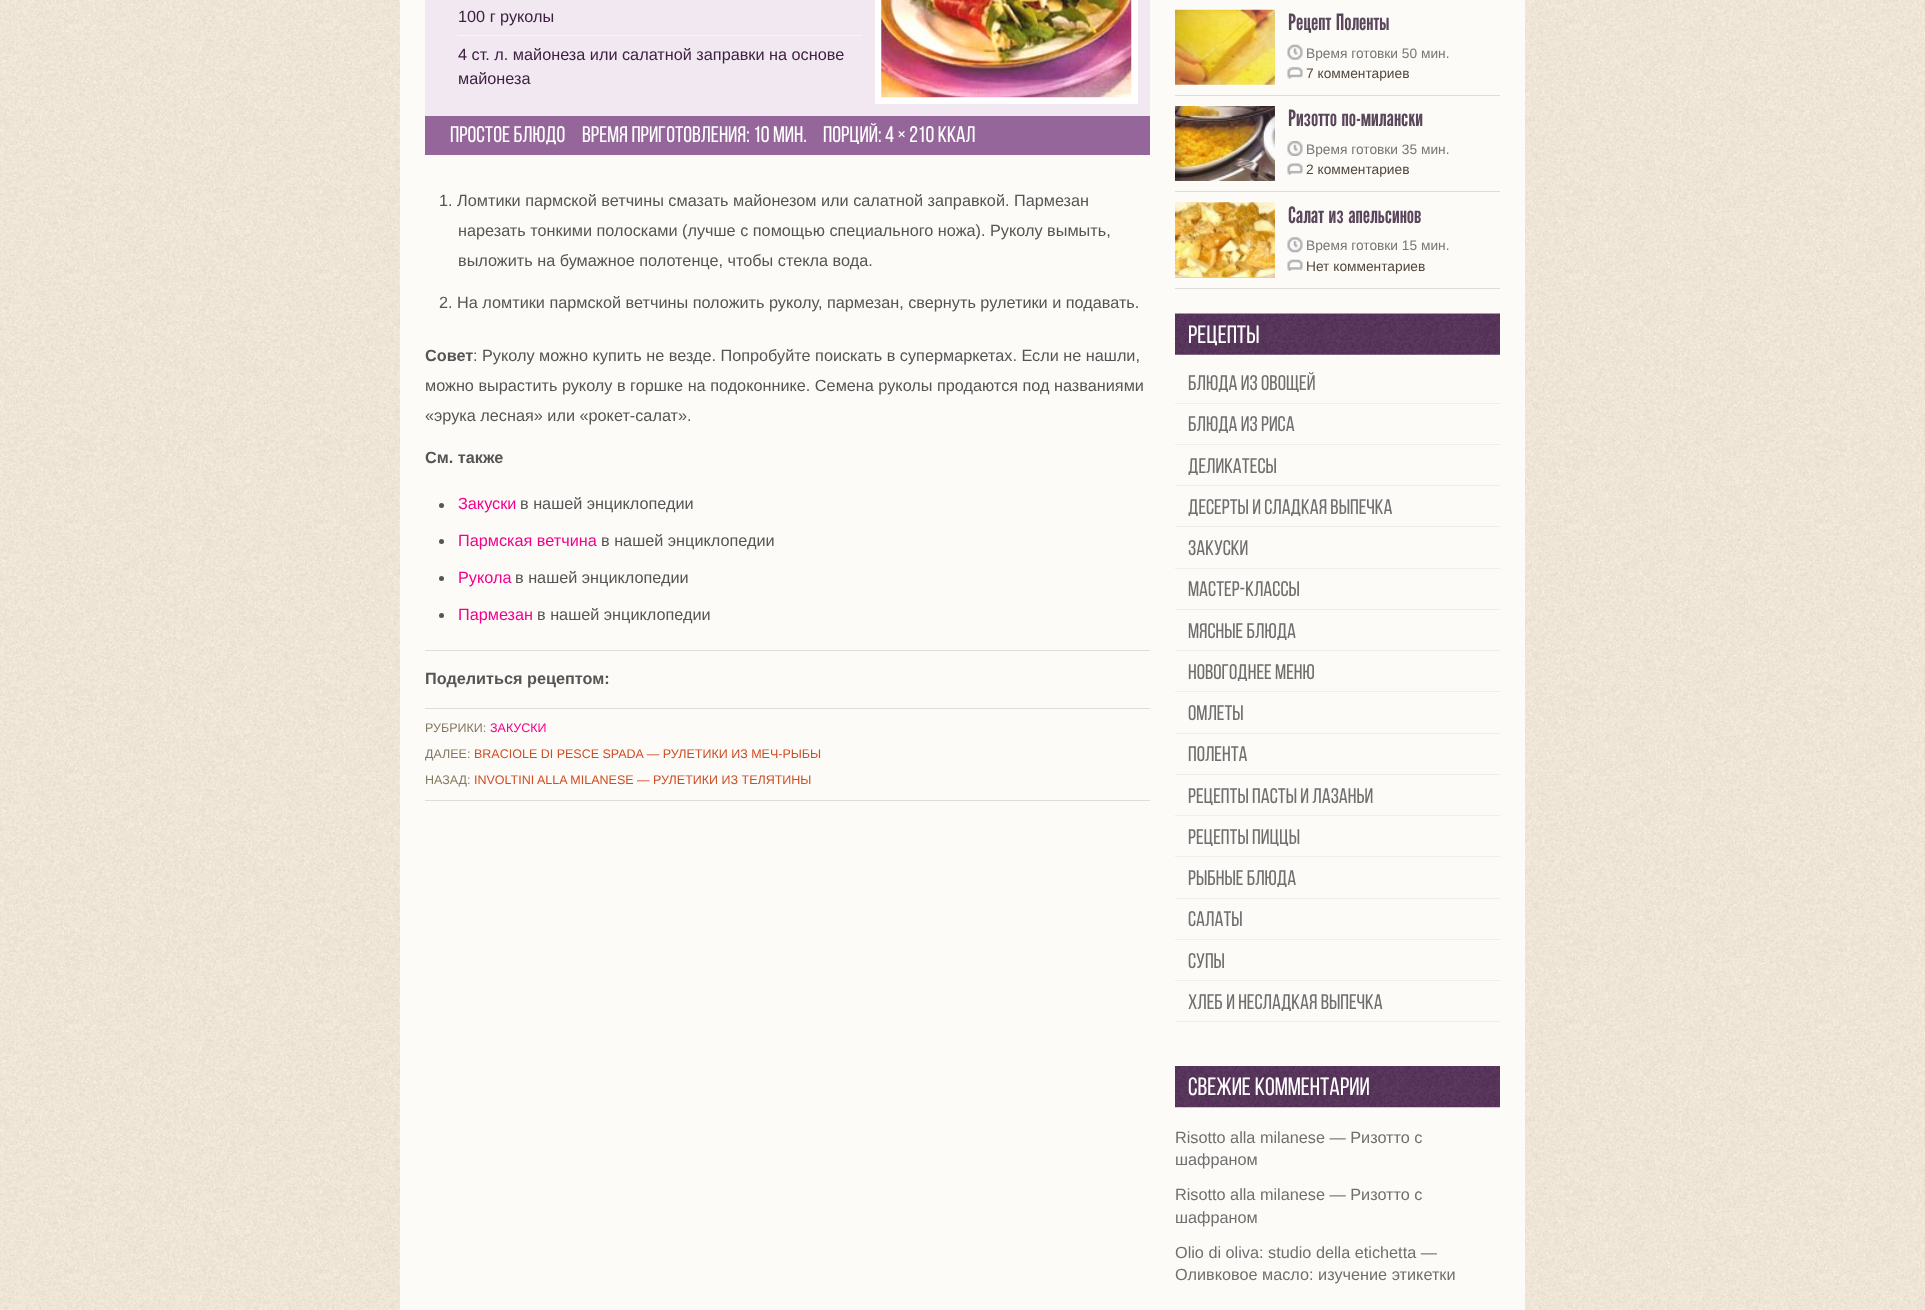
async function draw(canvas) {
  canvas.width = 1925;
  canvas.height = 1310;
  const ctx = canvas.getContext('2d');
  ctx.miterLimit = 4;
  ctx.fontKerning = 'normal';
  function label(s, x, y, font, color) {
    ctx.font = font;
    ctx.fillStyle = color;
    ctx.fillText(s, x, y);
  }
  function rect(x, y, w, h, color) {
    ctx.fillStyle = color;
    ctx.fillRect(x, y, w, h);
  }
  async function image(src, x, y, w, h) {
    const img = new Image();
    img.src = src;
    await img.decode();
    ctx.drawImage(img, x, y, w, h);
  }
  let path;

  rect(0, 0, 1925, 1310, '#fff');
  await image('assets/img1.png', 0, 0, 1925, 1310);
  rect(400, 0, 1125, 1310, '#fdfbf8');
  rect(425, 0, 725, 116, '#f1e8f2');
  path = new Path2D('M457.5 35.5H862.5');
  ctx.strokeStyle = '#fff';
  ctx.lineWidth = 1.2;
  ctx.setLineDash([1.25, 1.25]);
  ctx.stroke(path);
  label('100 г руколы', 458, 22, '16.25px Liberation Sans', '#3e2140');
  label('4 ст. л. майонеза или салатной заправки на основе', 458, 60, '16.25px Liberation Sans', '#3e2140');
  label('майонеза', 458, 84, '16.25px Liberation Sans', '#3e2140');
  rect(875, 0, 263, 104, '#fff');
  await image('assets/img2.png', 881, 0, 251, 98);
  rect(425, 116, 725, 39, '#946699');
  label('Простое блюдо', 450, 142, '22.5px Bebas Neue', '#fff');
  label('Время приготовления: 10 мин.', 582, 142, '22.5px Bebas Neue', '#fff');
  label('Порций: 4 × 210 Ккал', 823, 142, '22.5px Bebas Neue', '#fff');
  label('1. Ломтики пармской ветчины смазать майонезом или салатной заправкой. Пармезан', 439, 206, '16.25px Liberation Sans', '#555');
  label('нарезать тонкими полосками (лучше с помощью специального ножа). Руколу вымыть,', 458, 236, '16.25px Liberation Sans', '#555');
  label('выложить на бумажное полотенце, чтобы стекла вода.', 458, 266, '16.25px Liberation Sans', '#555');
  label('2. На ломтики пармской ветчины положить руколу, пармезан, свернуть рулетики и подавать.', 439, 308, '16.25px Liberation Sans', '#555');
  label('Совет', 425, 361, 'bold 16.25px Liberation Sans', '#555');
  label(': Руколу можно купить не везде. Попробуйте поискать в супермаркетах. Если не нашли,', 473, 361, '16.25px Liberation Sans', '#555');
  label('можно вырастить руколу в горшке на подоконнике. Семена руколы продаются под названиями', 425, 391, '16.25px Liberation Sans', '#555');
  label('«эрука лесная» или «рокет-салат».', 425, 421, '16.25px Liberation Sans', '#555');
  label('См. также', 425, 463, 'bold 16.25px Liberation Sans', '#555');
  ctx.beginPath();
  ctx.arc(441.5, 505.5, 2.5, 0, 2 * Math.PI);
  ctx.fill();
  label('Закуски', 458, 509, '16.25px Liberation Sans', '#f4008e');
  label('в нашей энциклопедии', 520, 509, '16.25px Liberation Sans', '#555');
  ctx.beginPath();
  ctx.arc(441.5, 541.5, 2.5, 0, 2 * Math.PI);
  ctx.fill();
  label('Пармская ветчина', 458, 546, '16.25px Liberation Sans', '#f4008e');
  label('в нашей энциклопедии', 601, 546, '16.25px Liberation Sans', '#555');
  ctx.beginPath();
  ctx.arc(441.5, 578.5, 2.5, 0, 2 * Math.PI);
  ctx.fill();
  label('Рукола', 458, 583, '16.25px Liberation Sans', '#f4008e');
  label('в нашей энциклопедии', 515, 583, '16.25px Liberation Sans', '#555');
  ctx.beginPath();
  ctx.arc(441.5, 615.5, 2.5, 0, 2 * Math.PI);
  ctx.fill();
  label('Пармезан', 458, 620, '16.25px Liberation Sans', '#f4008e');
  label('в нашей энциклопедии', 537, 620, '16.25px Liberation Sans', '#555');
  rect(425, 650, 725, 1, '#ddd');
  label('Поделиться рецептом:', 425, 684, 'bold 16.25px Liberation Sans', '#555');
  rect(425, 708, 725, 1, '#ddd');
  rect(425, 800, 725, 1, '#ddd');
  label('РУБРИКИ:', 425, 732, '12.5px Liberation Sans', '#827a60');
  label('ЗАКУСКИ', 490, 732, '12.5px Liberation Sans', '#f4008e');
  label('ДАЛЕЕ:', 425, 758, '12.5px Liberation Sans', '#827a60');
  label('BRACIOLE DI PESCE SPADA — РУЛЕТИКИ ИЗ МЕЧ-РЫБЫ', 474, 758, '12.5px Liberation Sans', '#cf4c23');
  label('НАЗАД:', 425, 784, '12.5px Liberation Sans', '#827a60');
  label('INVOLTINI ALLA MILANESE — РУЛЕТИКИ ИЗ ТЕЛЯТИНЫ', 474, 784, '12.5px Liberation Sans', '#cf4c23');
  rect(1175, 95, 325, 1, '#ddd');
  await image('assets/img3.png', 1175, 9, 100, 76);
  label('Рецепт Поленты', 1288, 30, '22.5px League Gothic', '#5a475b');
  await image('assets/img4.png', 1287, 44, 16, 16);
  label('Время готовки 50 мин.', 1306, 58, '13.75px Liberation Sans', '#777');
  await image('assets/img5.png', 1287, 67, 16, 12);
  label('7 комментариев', 1306, 78, '13.75px Liberation Sans', '#52483e');
  rect(1175, 191, 325, 1, '#ddd');
  await image('assets/img6.png', 1175, 106, 100, 75);
  label('Ризотто по-милански', 1288, 126, '22.5px League Gothic', '#5a475b');
  await image('assets/img7.png', 1287, 141, 16, 15);
  label('Время готовки 35 мин.', 1306, 154, '13.75px Liberation Sans', '#777');
  await image('assets/img8.png', 1287, 163, 16, 12);
  label('2 комментариев', 1306, 174, '13.75px Liberation Sans', '#52483e');
  rect(1175, 288, 325, 1, '#ddd');
  rect(1175, 277, 100, 1, '#ccc');
  await image('assets/img9.png', 1175, 202, 100, 76);
  label('Салат из апельсинов', 1288, 223, '22.5px League Gothic', '#5a475b');
  await image('assets/img10.png', 1287, 237, 16, 16);
  label('Время готовки 15 мин.', 1306, 250, '13.75px Liberation Sans', '#777');
  await image('assets/img11.png', 1287, 259, 16, 12);
  label('Нет комментариев', 1306, 271, '13.75px Liberation Sans', '#52483e');
  await image('assets/img12.png', 1175, 313, 325, 42);
  label('Рецепты', 1188, 343, '25px Bebas Neue', '#fff');
  rect(1175, 403, 325, 1, '#eee');
  label('Блюда из овощей', 1188, 390, '21.25px Bebas Neue', '#6f6f6f');
  rect(1175, 444, 325, 1, '#eee');
  label('Блюда из риса', 1188, 431, '21.25px Bebas Neue', '#6f6f6f');
  rect(1175, 485, 325, 1, '#eee');
  label('Деликатесы', 1188, 473, '21.25px Bebas Neue', '#6f6f6f');
  rect(1175, 526, 325, 1, '#eee');
  label('Десерты и сладкая выпечка', 1188, 514, '21.25px Bebas Neue', '#6f6f6f');
  rect(1175, 568, 325, 1, '#eee');
  label('Закуски', 1188, 555, '21.25px Bebas Neue', '#6f6f6f');
  rect(1175, 609, 325, 1, '#eee');
  label('Мастер-классы', 1188, 596, '21.25px Bebas Neue', '#6f6f6f');
  rect(1175, 650, 325, 1, '#eee');
  label('Мясные блюда', 1188, 638, '21.25px Bebas Neue', '#6f6f6f');
  rect(1175, 691, 325, 1, '#eee');
  label('Новогоднее меню', 1188, 679, '21.25px Bebas Neue', '#6f6f6f');
  rect(1175, 733, 325, 1, '#eee');
  label('Омлеты', 1188, 720, '21.25px Bebas Neue', '#6f6f6f');
  rect(1175, 774, 325, 1, '#eee');
  label('Полента', 1188, 761, '21.25px Bebas Neue', '#6f6f6f');
  rect(1175, 815, 325, 1, '#eee');
  label('Рецепты пасты и лазаньи', 1188, 803, '21.25px Bebas Neue', '#6f6f6f');
  rect(1175, 856, 325, 1, '#eee');
  label('Рецепты пиццы', 1188, 844, '21.25px Bebas Neue', '#6f6f6f');
  rect(1175, 898, 325, 1, '#eee');
  label('Рыбные блюда', 1188, 885, '21.25px Bebas Neue', '#6f6f6f');
  rect(1175, 939, 325, 1, '#eee');
  label('Салаты', 1188, 926, '21.25px Bebas Neue', '#6f6f6f');
  rect(1175, 980, 325, 1, '#eee');
  label('Супы', 1188, 968, '21.25px Bebas Neue', '#6f6f6f');
  rect(1175, 1021, 325, 1, '#eee');
  label('Хлеб и несладкая выпечка', 1188, 1009, '21.25px Bebas Neue', '#6f6f6f');
  await image('assets/img13.png', 1175, 1066, 325, 42);
  label('Свежие комментарии', 1188, 1095, '25px Bebas Neue', '#fff');
  label('Risotto alla milanese — Ризотто с', 1175, 1143, '16.25px Liberation Sans', '#6f6f6f');
  label('шафраном', 1175, 1165, '16.25px Liberation Sans', '#6f6f6f');
  label('Risotto alla milanese — Ризотто с', 1175, 1200, '16.25px Liberation Sans', '#6f6f6f');
  label('шафраном', 1175, 1223, '16.25px Liberation Sans', '#6f6f6f');
  label('Olio di oliva: studio della etichetta —', 1175, 1258, '16.25px Liberation Sans', '#6f6f6f');
  label('Оливковое масло: изучение этикетки', 1175, 1280, '16.25px Liberation Sans', '#6f6f6f');
}

draw(document.querySelector('canvas'));
